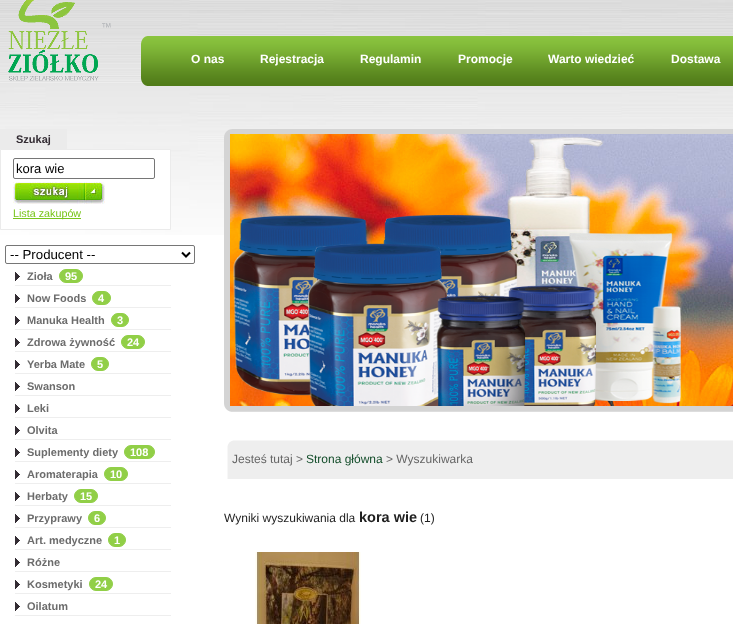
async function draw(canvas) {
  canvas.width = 733;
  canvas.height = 624;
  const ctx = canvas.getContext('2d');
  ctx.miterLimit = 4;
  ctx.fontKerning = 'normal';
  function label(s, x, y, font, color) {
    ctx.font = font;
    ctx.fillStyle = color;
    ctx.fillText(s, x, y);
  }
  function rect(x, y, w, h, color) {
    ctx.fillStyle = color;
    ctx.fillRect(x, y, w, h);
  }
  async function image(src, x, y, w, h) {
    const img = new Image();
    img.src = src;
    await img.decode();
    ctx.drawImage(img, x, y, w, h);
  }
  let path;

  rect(0, 0, 733, 624, '#fff');
  await image('assets/img1.png', 0, 0, 733, 235);
  await image('assets/img2.png', 8, 0, 103, 81);
  await image('assets/img3.png', 141, 36, 592, 50);
  label('O nas', 191, 63, 'bold 12px Liberation Sans', '#fff');
  label('Rejestracja', 260, 63, 'bold 12px Liberation Sans', '#fff');
  label('Regulamin', 360, 63, 'bold 12px Liberation Sans', '#fff');
  label('Promocje', 458, 63, 'bold 12px Liberation Sans', '#fff');
  label('Warto wiedzieć', 548, 63, 'bold 12px Liberation Sans', '#fff');
  label('Dostawa', 671, 63, 'bold 12px Liberation Sans', '#fff');
  rect(0, 129, 67, 20, '#ebebeb');
  label('Szukaj', 16, 143, 'bold 11px Liberation Sans', '#332c33');
  ctx.fillStyle = '#fff';
  ctx.beginPath();
  ctx.rect(0.5, 149.5, 170, 80);
  ctx.fill();
  ctx.strokeStyle = '#ebebeb';
  ctx.stroke();
  ctx.beginPath();
  ctx.roundRect(13.5, 158.5, 141, 20, 1.5);
  ctx.strokeStyle = '#767676';
  ctx.stroke();
  label('kora wie', 16, 173, '13px Liberation Sans', '#000');
  await image('assets/img4.png', 13, 182, 92, 22);
  rect(13, 218, 68, 1, '#79c51b');
  label('Lista zakupów', 13, 217, '10.75px Liberation Sans', '#79c51b');
  ctx.beginPath();
  ctx.roundRect(5.5, 245.5, 189, 18, 1.5);
  ctx.stroke();
  path = new Path2D('M182 252.5L186 256.5L190 252.5');
  ctx.strokeStyle = '#000';
  ctx.lineWidth = 2;
  ctx.stroke(path);
  label('-- Producent --', 10, 259, '13.25px Liberation Sans', '#000');
  rect(15, 285, 156, 1, '#eee');
  await image('assets/img5.png', 15, 272, 5, 9);
  label('Zioła', 27, 280, 'bold 11px Liberation Sans', '#6c6c6c');
  ctx.fillStyle = '#91cf47';
  ctx.beginPath();
  ctx.roundRect(59.5, 269.5, 23, 13, 6.5);
  ctx.fill();
  ctx.strokeStyle = '#91cf47';
  ctx.lineWidth = 1;
  ctx.stroke();
  label('95', 65, 280, 'bold 11px Liberation Sans', '#fff');
  rect(15, 307, 156, 1, '#eee');
  await image('assets/img5.png', 15, 294, 5, 9);
  label('Now Foods', 27, 302, 'bold 11px Liberation Sans', '#6c6c6c');
  ctx.fillStyle = '#91cf47';
  ctx.beginPath();
  ctx.roundRect(92.5, 291.5, 18, 13, 6.5);
  ctx.fill();
  ctx.stroke();
  label('4', 98, 302, 'bold 11px Liberation Sans', '#fff');
  rect(15, 329, 156, 1, '#eee');
  await image('assets/img5.png', 15, 316, 5, 9);
  label('Manuka Health', 27, 324, 'bold 11px Liberation Sans', '#6c6c6c');
  ctx.fillStyle = '#91cf47';
  ctx.beginPath();
  ctx.roundRect(111.5, 313.5, 17, 13, 6.5);
  ctx.fill();
  ctx.stroke();
  label('3', 117, 324, 'bold 11px Liberation Sans', '#fff');
  rect(15, 351, 156, 1, '#eee');
  await image('assets/img5.png', 15, 338, 5, 9);
  label('Zdrowa żywność', 27, 346, 'bold 11px Liberation Sans', '#6c6c6c');
  ctx.fillStyle = '#91cf47';
  ctx.beginPath();
  ctx.roundRect(121.5, 335.5, 23, 13, 6.5);
  ctx.fill();
  ctx.stroke();
  label('24', 127, 346, 'bold 11px Liberation Sans', '#fff');
  rect(15, 373, 156, 1, '#eee');
  await image('assets/img5.png', 15, 360, 5, 9);
  label('Yerba Mate', 27, 368, 'bold 11px Liberation Sans', '#6c6c6c');
  ctx.fillStyle = '#91cf47';
  ctx.beginPath();
  ctx.roundRect(91.5, 357.5, 17, 13, 6.5);
  ctx.fill();
  ctx.stroke();
  label('5', 97, 368, 'bold 11px Liberation Sans', '#fff');
  rect(15, 395, 156, 1, '#eee');
  await image('assets/img5.png', 15, 382, 5, 9);
  label('Swanson', 27, 390, 'bold 11px Liberation Sans', '#6c6c6c');
  rect(15, 417, 156, 1, '#eee');
  await image('assets/img5.png', 15, 404, 5, 9);
  label('Leki', 27, 412, 'bold 11px Liberation Sans', '#6c6c6c');
  rect(15, 439, 156, 1, '#eee');
  await image('assets/img5.png', 15, 426, 5, 9);
  label('Olvita', 27, 434, 'bold 11px Liberation Sans', '#6c6c6c');
  rect(15, 461, 156, 1, '#eee');
  await image('assets/img5.png', 15, 448, 5, 9);
  label('Suplementy diety', 27, 456, 'bold 11px Liberation Sans', '#6c6c6c');
  ctx.fillStyle = '#91cf47';
  ctx.beginPath();
  ctx.roundRect(124.5, 445.5, 30, 13, 6.5);
  ctx.fill();
  ctx.stroke();
  label('108', 130, 456, 'bold 11px Liberation Sans', '#fff');
  rect(15, 483, 156, 1, '#eee');
  await image('assets/img5.png', 15, 470, 5, 9);
  label('Aromaterapia', 27, 478, 'bold 11px Liberation Sans', '#6c6c6c');
  ctx.fillStyle = '#91cf47';
  ctx.beginPath();
  ctx.roundRect(104.5, 467.5, 23, 13, 6.5);
  ctx.fill();
  ctx.stroke();
  label('10', 110, 478, 'bold 11px Liberation Sans', '#fff');
  rect(15, 505, 156, 1, '#eee');
  await image('assets/img5.png', 15, 492, 5, 9);
  label('Herbaty', 27, 500, 'bold 11px Liberation Sans', '#6c6c6c');
  ctx.fillStyle = '#91cf47';
  ctx.beginPath();
  ctx.roundRect(74.5, 489.5, 23, 13, 6.5);
  ctx.fill();
  ctx.stroke();
  label('15', 80, 500, 'bold 11px Liberation Sans', '#fff');
  rect(15, 527, 156, 1, '#eee');
  await image('assets/img5.png', 15, 514, 5, 9);
  label('Przyprawy', 27, 522, 'bold 11px Liberation Sans', '#6c6c6c');
  ctx.fillStyle = '#91cf47';
  ctx.beginPath();
  ctx.roundRect(88.5, 511.5, 17, 13, 6.5);
  ctx.fill();
  ctx.stroke();
  label('6', 94, 522, 'bold 11px Liberation Sans', '#fff');
  rect(15, 549, 156, 1, '#eee');
  await image('assets/img5.png', 15, 536, 5, 9);
  label('Art. medyczne', 27, 544, 'bold 11px Liberation Sans', '#6c6c6c');
  ctx.fillStyle = '#91cf47';
  ctx.beginPath();
  ctx.roundRect(108.5, 533.5, 17, 13, 6.5);
  ctx.fill();
  ctx.stroke();
  label('1', 114, 544, 'bold 11px Liberation Sans', '#fff');
  rect(15, 571, 156, 1, '#eee');
  await image('assets/img5.png', 15, 558, 5, 9);
  label('Różne', 27, 566, 'bold 11px Liberation Sans', '#6c6c6c');
  rect(15, 593, 156, 1, '#eee');
  await image('assets/img5.png', 15, 580, 5, 9);
  label('Kosmetyki', 27, 588, 'bold 11px Liberation Sans', '#6c6c6c');
  ctx.fillStyle = '#91cf47';
  ctx.beginPath();
  ctx.roundRect(89.5, 577.5, 23, 13, 6.5);
  ctx.fill();
  ctx.stroke();
  label('24', 95, 588, 'bold 11px Liberation Sans', '#fff');
  rect(15, 615, 156, 1, '#eee');
  await image('assets/img5.png', 15, 602, 5, 9);
  label('Oilatum', 27, 610, 'bold 11px Liberation Sans', '#6c6c6c');
  await image('assets/img6.png', 224, 129, 509, 283);
  await image('assets/img7.png', 230, 134, 503, 272);
  await image('assets/img8.png', 233, 136, 448, 270);
  await image('assets/img9.png', 227, 440, 506, 39);
  label('Jesteś tutaj >', 232, 463, '12px Liberation Sans', '#666');
  label('Strona główna', 306, 463, '12px Liberation Sans', '#134d2a');
  label('> Wyszukiwarka', 386, 463, '12px Liberation Sans', '#666');
  label('Wyniki wyszukiwania dla', 224, 522, '12px Liberation Sans', '#1f1f1f');
  label('kora wie', 359, 522, 'bold 14.5px Liberation Sans', '#1f1f1f');
  label('(1)', 420, 522, '12px Liberation Sans', '#1f1f1f');
  await image('assets/img10.png', 255, 552, 106, 72);
}

draw(document.querySelector('canvas'));
